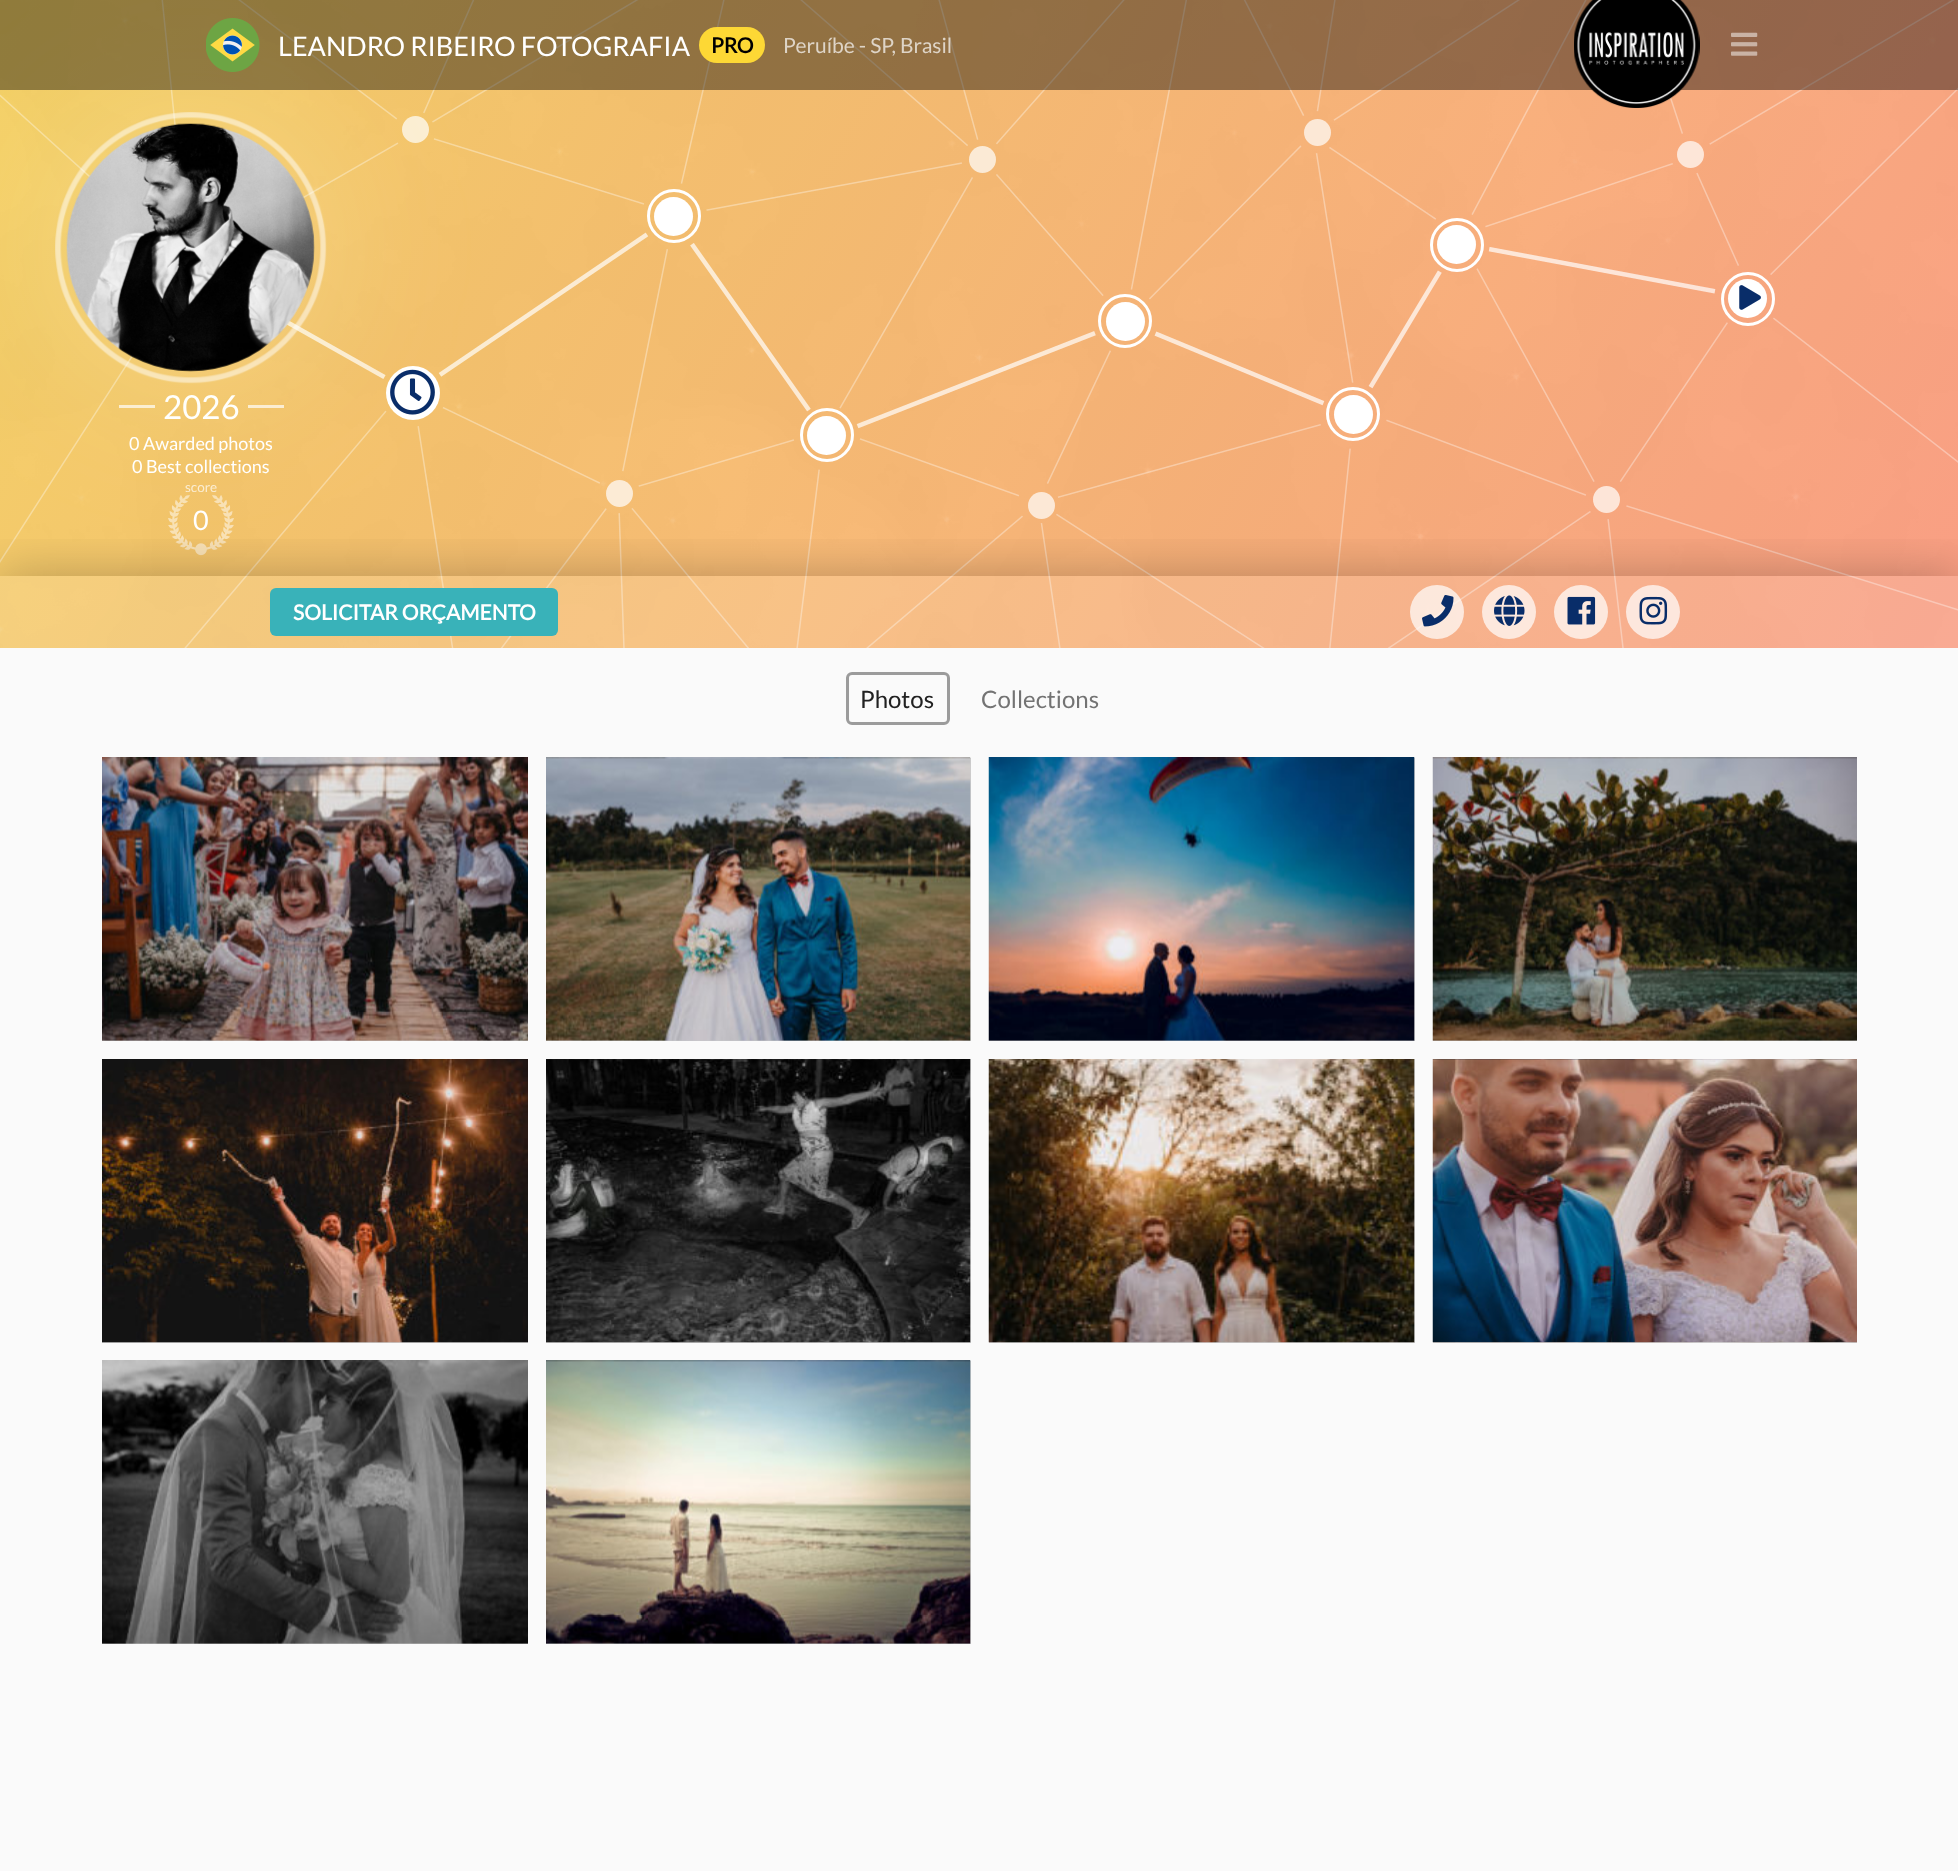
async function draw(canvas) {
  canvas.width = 1958;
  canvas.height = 1871;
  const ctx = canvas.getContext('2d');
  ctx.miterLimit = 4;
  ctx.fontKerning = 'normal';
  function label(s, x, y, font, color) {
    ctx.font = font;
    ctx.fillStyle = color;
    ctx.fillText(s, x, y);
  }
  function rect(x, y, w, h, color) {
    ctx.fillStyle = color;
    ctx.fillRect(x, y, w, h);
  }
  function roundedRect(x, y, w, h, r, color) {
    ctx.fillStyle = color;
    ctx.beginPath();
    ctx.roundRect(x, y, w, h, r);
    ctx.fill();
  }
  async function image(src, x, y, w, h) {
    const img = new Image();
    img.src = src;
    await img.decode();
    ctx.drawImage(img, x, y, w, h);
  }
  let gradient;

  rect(0, 0, 1958, 1871, '#fafafa');
  gradient = ctx.createLinearGradient(105, -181, 1854, 829);
  gradient.addColorStop(0, '#f6d365');
  gradient.addColorStop(1, '#fda085');
  ctx.fillStyle = gradient;
  ctx.fillRect(0, 0, 1958, 648);
  await image('assets/img1.png', 0, 0, 1958, 648);
  rect(119, 405, 36, 3, '#fbeed2');
  label('2026', 163, 419, '33px Lato', '#fff');
  rect(248, 405, 36, 3, '#fbedd3');
  label('0 Awarded photos', 129, 450, '18px Lato', '#fff');
  label('0 Best collections', 132, 473, '18px Lato', '#fff');
  await image('assets/img9.png', 168, 495, 66, 61);
  label('score', 185, 492, '13.5px Lato', '#fbedd2');
  label('0', 193, 530, '27px Lato', '#fff');
  await image('assets/img5.png', 0, 0, 1958, 648);
  ctx.fillStyle = '#fbeed3';
  ctx.beginPath();
  ctx.arc(415.5, 129.5, 13.5, 0, 2 * Math.PI);
  ctx.fill();
  ctx.fillStyle = '#fff';
  ctx.beginPath();
  ctx.arc(413, 393, 27, 0, 2 * Math.PI);
  ctx.fill();
  await image('assets/img10.png', 390, 369, 45, 46);
  ctx.fillStyle = '#ffffcc40';
  ctx.filter = 'blur(74.5px)';
  ctx.beginPath();
  ctx.roundRect(60, 117, 261, 261, 130.5);
  ctx.fill();
  ctx.filter = 'none';
  rect(0, 0, 1958, 90, '#00000066');
  await image('assets/img2.png', 206, 18, 54, 54);
  label('LEANDRO RIBEIRO FOTOGRAFIA', 278, 56, '27px Lato', '#fff');
  roundedRect(699, 27, 66, 36, 18, '#fdd835');
  label('PRO', 711, 53, 'bold 21px Lato', '#000');
  label('Peruíbe - SP, Brasil', 783, 53, '21px Lato', '#ded4c7');
  await image('assets/img3.png', 1574, 0, 126, 108);
  await image('assets/img4.png', 1731, 32, 27, 24);
  await image('assets/img7.png', 66, 123, 249, 249);
  await image('assets/img6.png', 55, 112, 272, 272);
  ctx.fillStyle = '#fce8d6';
  ctx.beginPath();
  ctx.arc(1317.5, 132.5, 13.5, 0, 2 * Math.PI);
  ctx.fill();
  ctx.fillStyle = '#fbead5';
  ctx.beginPath();
  ctx.arc(982.5, 159.5, 13.5, 0, 2 * Math.PI);
  ctx.fill();
  ctx.fillStyle = '#fde6d8';
  ctx.beginPath();
  ctx.arc(1690.5, 154.5, 13.5, 0, 2 * Math.PI);
  ctx.fill();
  ctx.fillStyle = '#fff';
  ctx.beginPath();
  ctx.arc(673.5, 216.5, 19.5, 0, 2 * Math.PI);
  ctx.fill();
  ctx.beginPath();
  ctx.arc(674, 216, 25.5, 0, 2 * Math.PI);
  ctx.strokeStyle = '#fff';
  ctx.lineWidth = 3;
  ctx.stroke();
  ctx.beginPath();
  ctx.arc(1456.5, 244.5, 19.5, 0, 2 * Math.PI);
  ctx.fill();
  ctx.beginPath();
  ctx.arc(1457, 245, 25.5, 0, 2 * Math.PI);
  ctx.stroke();
  ctx.beginPath();
  ctx.arc(1125.5, 321.5, 19.5, 0, 2 * Math.PI);
  ctx.fill();
  ctx.beginPath();
  ctx.arc(1125, 321, 25.5, 0, 2 * Math.PI);
  ctx.stroke();
  ctx.beginPath();
  ctx.arc(1747.5, 298.5, 19.5, 0, 2 * Math.PI);
  ctx.fill();
  await image('assets/img8.png', 1739, 285, 22, 25);
  ctx.beginPath();
  ctx.arc(1748, 299, 25.5, 0, 2 * Math.PI);
  ctx.stroke();
  ctx.beginPath();
  ctx.arc(826.5, 435.5, 19.5, 0, 2 * Math.PI);
  ctx.fill();
  ctx.beginPath();
  ctx.arc(827, 435, 25.5, 0, 2 * Math.PI);
  ctx.stroke();
  ctx.beginPath();
  ctx.arc(1353.5, 414.5, 19.5, 0, 2 * Math.PI);
  ctx.fill();
  ctx.beginPath();
  ctx.arc(1353, 414, 25.5, 0, 2 * Math.PI);
  ctx.stroke();
  ctx.fillStyle = '#fcebd5';
  ctx.beginPath();
  ctx.arc(619.5, 493.5, 13.5, 0, 2 * Math.PI);
  ctx.fill();
  ctx.fillStyle = '#fce8d6';
  ctx.beginPath();
  ctx.arc(1041.5, 505.5, 13.5, 0, 2 * Math.PI);
  ctx.fill();
  ctx.fillStyle = '#fde5d8';
  ctx.beginPath();
  ctx.arc(1606.5, 499.5, 13.5, 0, 2 * Math.PI);
  ctx.fill();
  ctx.beginPath();
  ctx.roundRect(847.5, 673.5, 101, 50, 4.5);
  ctx.strokeStyle = '#9b9b9b';
  ctx.stroke();
  ctx.save();
  ctx.beginPath();
  ctx.rect(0, 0, 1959, 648);
  ctx.clip();
  ctx.beginPath();
  ctx.rect(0, 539, 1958, 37);
  ctx.clip();
  ctx.fillStyle = '#00000040';
  ctx.filter = 'blur(26px)';
  ctx.beginPath();
  ctx.rect(0, 576, 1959, 72);
  ctx.fill();
  ctx.filter = 'none';
  ctx.restore();
  rect(0, 576, 1958, 72, '#ffffff1f');
  roundedRect(270, 588, 288, 48, 6, '#39b2b9');
  label('SOLICITAR ORÇAMENTO', 293, 620, 'bold 21px Lato', '#fff');
  ctx.fillStyle = '#ffffffb3';
  ctx.beginPath();
  ctx.arc(1437, 612, 27, 0, 2 * Math.PI);
  ctx.fill();
  await image('assets/img11.png', 1422, 595, 32, 32);
  ctx.fillStyle = '#fde8dd';
  ctx.beginPath();
  ctx.arc(1509, 612, 27, 0, 2 * Math.PI);
  ctx.fill();
  await image('assets/img12.png', 1494, 595, 31, 31);
  ctx.beginPath();
  ctx.arc(1581, 612, 27, 0, 2 * Math.PI);
  ctx.fill();
  await image('assets/img13.png', 1567, 596, 29, 29);
  ctx.fillStyle = '#ffffffb3';
  ctx.beginPath();
  ctx.arc(1653, 612, 27, 0, 2 * Math.PI);
  ctx.fill();
  await image('assets/img14.png', 1639, 596, 29, 29);
  label('Photos', 860, 708, '24px Lato', '#212121');
  label('Collections', 981, 708, '24px Lato', '#737373');
  rect(102, 1040, 426, 1, '#ccc');
  await image('assets/img15.png', 102, 757, 426, 284);
  rect(546, 758, 425, 283, '#ccc');
  await image('assets/img16.png', 546, 757, 425, 284);
  rect(989, 758, 426, 283, '#ccc');
  await image('assets/img17.png', 988, 757, 427, 284);
  rect(1433, 1040, 424, 1, '#ccc');
  await image('assets/img18.png', 1432, 757, 425, 284);
  rect(102, 1342, 426, 1, '#ccc');
  await image('assets/img19.png', 102, 1059, 426, 284);
  rect(546, 1059, 425, 284, '#ccc');
  await image('assets/img20.png', 546, 1059, 425, 284);
  rect(989, 1059, 426, 284, '#ccc');
  await image('assets/img21.png', 988, 1059, 427, 284);
  rect(1433, 1342, 424, 1, '#ccc');
  await image('assets/img22.png', 1432, 1059, 425, 284);
  rect(102, 1643, 426, 1, '#ccc');
  await image('assets/img23.png', 102, 1360, 426, 284);
  rect(546, 1361, 425, 283, '#ccc');
  await image('assets/img24.png', 546, 1360, 425, 284);
}

draw(document.querySelector('canvas'));
